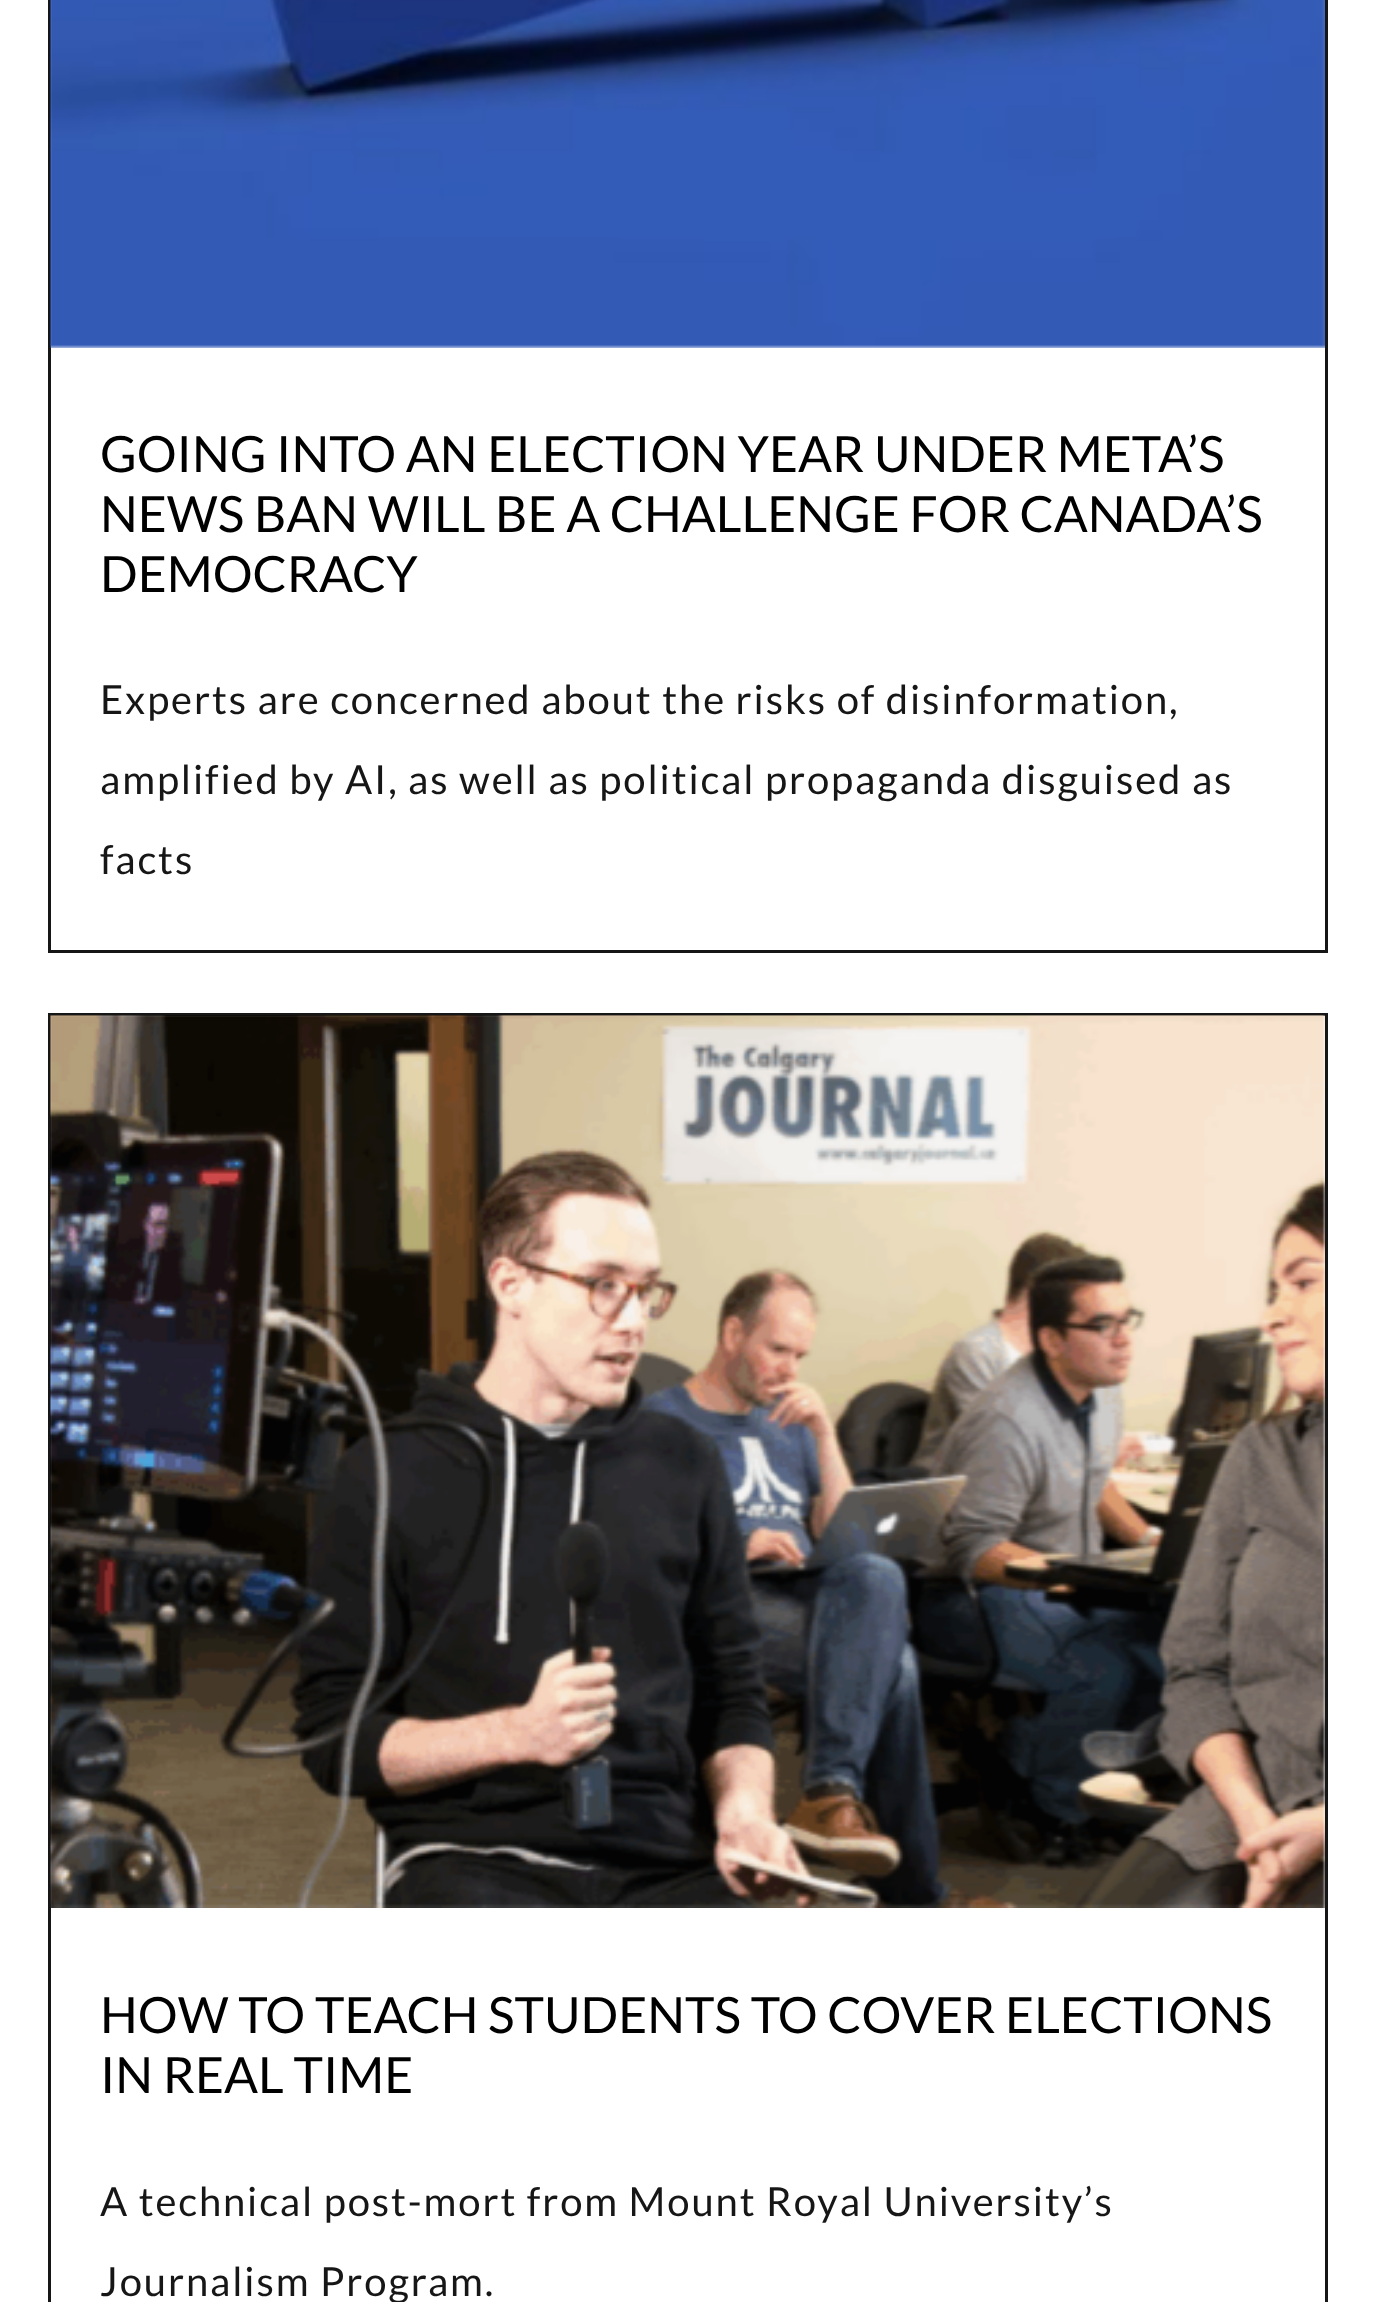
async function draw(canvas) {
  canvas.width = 1374;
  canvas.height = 2302;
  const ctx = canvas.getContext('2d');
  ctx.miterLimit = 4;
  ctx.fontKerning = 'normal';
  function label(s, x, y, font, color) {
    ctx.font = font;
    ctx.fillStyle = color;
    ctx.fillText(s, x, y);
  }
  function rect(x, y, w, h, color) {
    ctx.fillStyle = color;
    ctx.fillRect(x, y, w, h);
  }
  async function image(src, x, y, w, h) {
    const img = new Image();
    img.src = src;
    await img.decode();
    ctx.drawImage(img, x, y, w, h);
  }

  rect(0, 0, 1374, 2302, '#fff');
  ctx.strokeStyle = '#161616';
  ctx.lineWidth = 3;
  ctx.strokeRect(49.5, -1.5, 1277, 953);
  await image('assets/img1.png', 50, 0, 1275, 348);
  label('GOING INTO AN ELECTION YEAR UNDER META’S', 100, 472, '50px Lato', '#000');
  label('NEWS BAN WILL BE A CHALLENGE FOR CANADA’S', 100, 532, '50px Lato', '#000');
  label('DEMOCRACY', 100, 592, '50px Lato', '#000');
  ctx.letterSpacing = '1.88px';
  label('Experts are concerned about the risks of disinformation,', 100, 714, '40px Lato', '#161616');
  label('amplified by AI, as well as political propaganda disguised as', 100, 794, '40px Lato', '#161616');
  label('facts', 100, 874, '40px Lato', '#161616');
  ctx.strokeRect(49.5, 1014.5, 1277, 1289);
  await image('assets/img2.png', 50, 1015, 1275, 893);
  ctx.letterSpacing = '0px';
  label('HOW TO TEACH STUDENTS TO COVER ELECTIONS', 100, 2033, '50px Lato', '#000');
  label('IN REAL TIME', 100, 2093, '50px Lato', '#000');
  ctx.letterSpacing = '1.88px';
  label('A technical post-mort from Mount Royal University’s', 100, 2216, '40px Lato', '#161616');
  label('Journalism Program.', 100, 2296, '40px Lato', '#161616');
}

draw(document.querySelector('canvas'));
